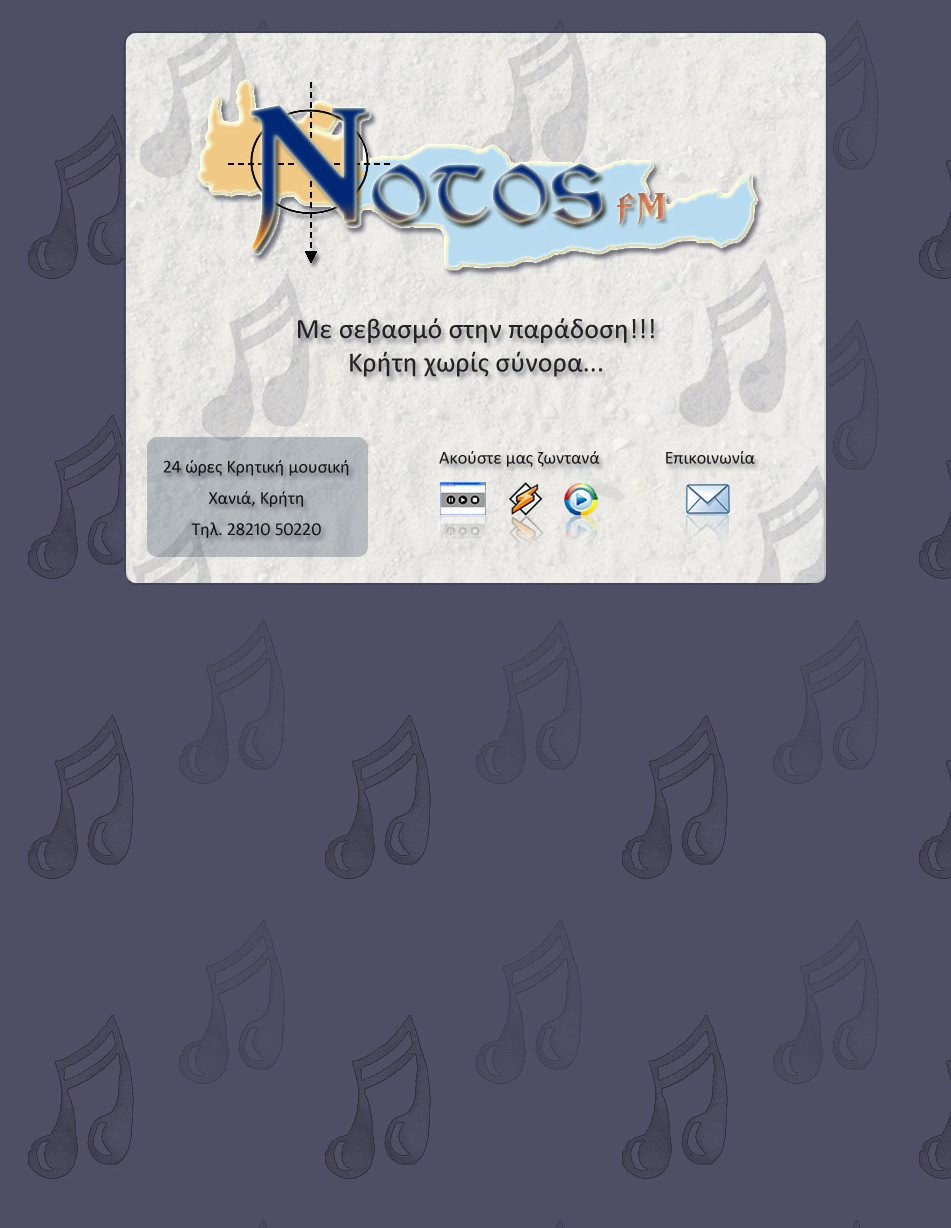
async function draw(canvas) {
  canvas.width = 951;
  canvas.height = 1228;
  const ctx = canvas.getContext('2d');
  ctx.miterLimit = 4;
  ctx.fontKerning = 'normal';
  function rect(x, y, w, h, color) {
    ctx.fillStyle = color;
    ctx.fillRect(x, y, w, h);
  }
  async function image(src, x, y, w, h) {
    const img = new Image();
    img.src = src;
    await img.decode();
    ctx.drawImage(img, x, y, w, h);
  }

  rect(0, 0, 951, 1228, '#4e4f64');
  await image('assets/img1.png', 28, 20, 923, 1208);
  await image('assets/img2.png', 123, 30, 706, 451);
  await image('assets/img3.png', 123, 481, 317, 35);
  await image('assets/img4.png', 440, 481, 46, 35);
  await image('assets/img5.png', 486, 481, 23, 35);
  await image('assets/img6.png', 509, 481, 34, 35);
  await image('assets/img7.png', 543, 481, 21, 35);
  await image('assets/img8.png', 564, 481, 35, 35);
  await image('assets/img9.png', 599, 481, 87, 35);
  await image('assets/img10.png', 686, 481, 44, 35);
  await image('assets/img11.png', 730, 481, 99, 35);
  await image('assets/img12.png', 123, 516, 704, 70);
}

draw(document.querySelector('canvas'));
